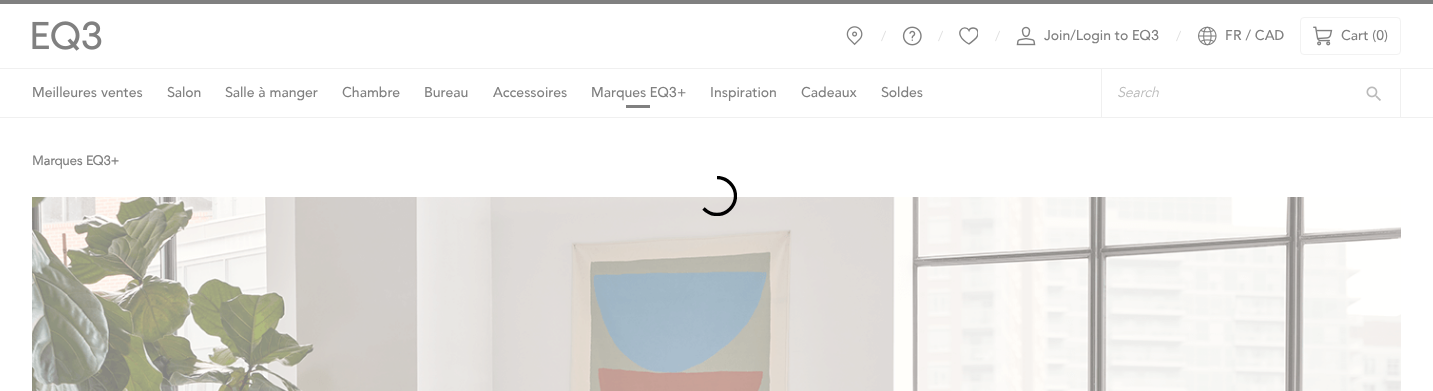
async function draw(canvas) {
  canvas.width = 1433;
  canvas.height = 391;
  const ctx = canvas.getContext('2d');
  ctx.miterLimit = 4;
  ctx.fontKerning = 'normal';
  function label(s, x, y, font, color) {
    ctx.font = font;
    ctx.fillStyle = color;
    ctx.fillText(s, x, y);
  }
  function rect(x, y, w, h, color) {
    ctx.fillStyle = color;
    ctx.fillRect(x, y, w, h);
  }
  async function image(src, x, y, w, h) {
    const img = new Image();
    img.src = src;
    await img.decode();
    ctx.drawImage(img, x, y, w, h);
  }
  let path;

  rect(0, 0, 1433, 391, '#fff');
  rect(0, 0, 1433, 4, '#808080');
  await image('assets/img1.png', 32, 21, 70, 30);
  await image('assets/img2.png', 846, 26, 17, 20);
  label('/', 881, 41, '14px "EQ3"', '#dfdfdf');
  await image('assets/img3.png', 902, 26, 20, 20);
  label('/', 938, 41, '14px "EQ3"', '#dfdfdf');
  ctx.save();
  ctx.beginPath();
  ctx.rect(959, 26, 19, 20);
  ctx.clip();
  path = new Path2D('M973 28C971.5 28 969.5 29 969 30.5C965 23 950.5 33 969 44C971.5 42 974.5 40 976.5 37.5C979 34 978.5 28 973 28Z');
  ctx.strokeStyle = '#808080';
  ctx.lineWidth = 1.4;
  ctx.stroke(path);
  ctx.restore();
  label('/', 995, 41, '14px "EQ3"', '#dfdfdf');
  await image('assets/img4.png', 1016, 26, 20, 20);
  label('Join/Login to EQ3', 1044, 40, '500 14px "EQ3"', '#808080');
  label('/', 1176, 41, '14px "EQ3"', '#dfdfdf');
  await image('assets/img5.png', 1198, 26, 19, 20);
  label('FR / CAD', 1225, 40, '500 14px "EQ3"', '#808080');
  ctx.beginPath();
  ctx.roundRect(1300.5, 17.5, 100, 37, 3.5);
  ctx.strokeStyle = '#f2f2f2';
  ctx.stroke();
  await image('assets/img6.png', 1313, 26, 20, 20);
  label('Cart (0)', 1341, 40, '500 14px "EQ3"', '#808080');
  rect(0, 68, 1433, 1, '#f0f0f0');
  rect(0, 117, 1433, 1, '#f0f0f0');
  label('Meilleures ventes', 32, 97, '500 14px "EQ3"', '#808080');
  label('Salon', 167, 97, '500 14px "EQ3"', '#808080');
  label('Salle à manger', 225, 97, '500 14px "EQ3"', '#808080');
  label('Chambre', 342, 97, '500 14px "EQ3"', '#808080');
  label('Bureau', 424, 97, '500 14px "EQ3"', '#808080');
  label('Accessoires', 493, 97, '500 14px "EQ3"', '#808080');
  label('Marques EQ3+', 591, 97, '500 14px "EQ3"', '#808080');
  rect(626, 105, 24, 3, '#808080');
  label('Inspiration', 710, 97, '500 14px "EQ3"', '#808080');
  label('Cadeaux', 801, 97, '500 14px "EQ3"', '#808080');
  label('Soldes', 881, 97, '500 14px "EQ3"', '#808080');
  ctx.strokeStyle = '#f0f0f0';
  ctx.strokeRect(1101.5, 68.5, 299, 49);
  await image('assets/img7.png', 1366, 86, 15, 15);
  label('Search', 1117, 97, 'italic 14px "EQ3"', '#bababa');
  label('Marques EQ3+', 32, 165, 'bold 13px "EQ3"', '#808080');
  await image('assets/img8.png', 32, 197, 1369, 194);
  ctx.save();
  ctx.beginPath();
  ctx.rect(697, 176, 40, 40);
  ctx.clip();
  path = new Path2D('M717 177.5C727 177.5 735.5 186 735.5 196C735.5 206 727 214.5 717 214.5C711.5 214.5 707 212 703.5 208.5');
  ctx.strokeStyle = '#000';
  ctx.lineWidth = 3.3;
  ctx.stroke(path);
  ctx.restore();
}

draw(document.querySelector('canvas'));
